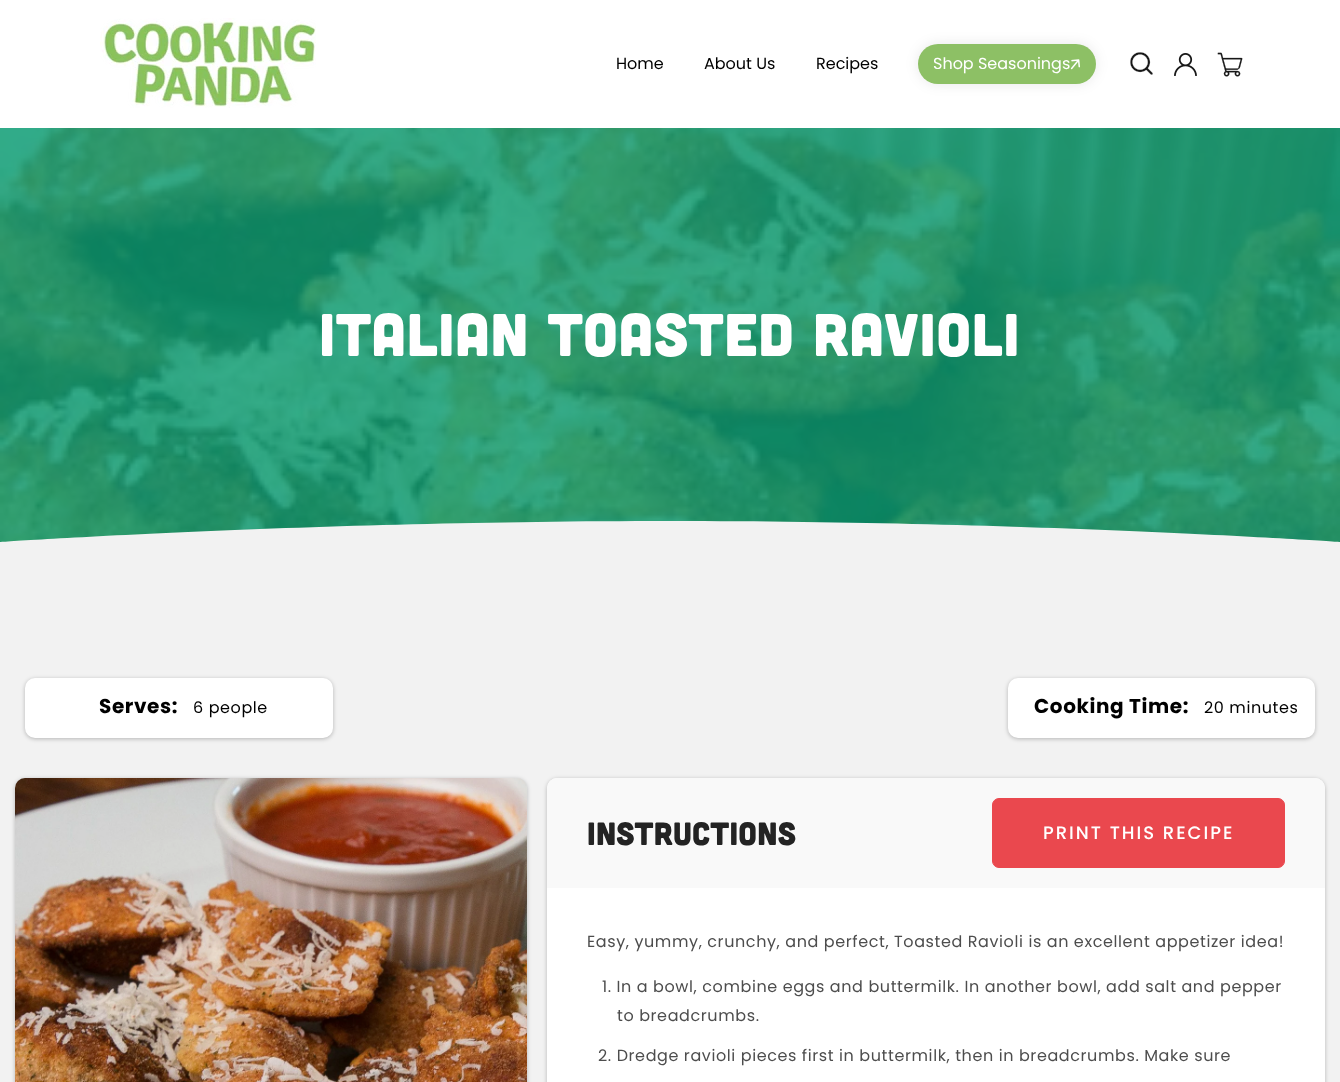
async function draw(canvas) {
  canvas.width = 1340;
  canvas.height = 1082;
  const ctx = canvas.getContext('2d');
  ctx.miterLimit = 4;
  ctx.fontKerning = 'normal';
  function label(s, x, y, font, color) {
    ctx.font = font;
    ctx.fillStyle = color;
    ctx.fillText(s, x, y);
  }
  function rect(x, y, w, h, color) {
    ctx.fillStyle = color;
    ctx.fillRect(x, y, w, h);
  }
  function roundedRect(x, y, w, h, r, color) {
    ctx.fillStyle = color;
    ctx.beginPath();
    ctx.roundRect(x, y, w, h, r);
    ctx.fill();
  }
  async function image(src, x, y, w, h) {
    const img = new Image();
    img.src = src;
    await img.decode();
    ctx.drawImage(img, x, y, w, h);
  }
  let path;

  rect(0, 0, 1340, 1082, '#f2f2f2');
  rect(0, 0, 1340, 128, '#fff');
  await image('assets/img1.png', 100, 18, 216, 90);
  label('Home', 616, 69, '16px Poppins', '#000');
  label('About Us', 704, 69, '16px Poppins', '#000');
  label('Recipes', 816, 69, '16px Poppins', '#000');
  ctx.fillStyle = '#00000017';
  ctx.filter = 'blur(6.5px)';
  ctx.beginPath();
  ctx.roundRect(918, 44, 178, 40, 20);
  ctx.fill();
  ctx.filter = 'none';
  roundedRect(918, 44, 178, 40, 20, '#8dc065');
  label('Shop Seasonings', 933, 69, '16px Poppins', '#fff');
  await image('assets/img2.png', 1070, 59, 10, 11);
  await image('assets/img3.png', 1130, 52, 23, 23);
  await image('assets/img4.png', 1174, 53, 23, 23);
  await image('assets/img5.png', 1217, 52, 26, 25);
  await image('assets/img6.png', 0, 128, 1340, 414);
  ctx.letterSpacing = '0.6px';
  label('Italian Toasted Ravioli', 319, 356, '60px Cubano', '#fff');
  ctx.fillStyle = '#f2f2f2';
  path = new Path2D('M0 542C0 542 308 521 670 521C1032 521 1340 542 1340 542V549H0Z');
  ctx.fill(path);
  ctx.fillStyle = '#00000040';
  ctx.filter = 'blur(2px)';
  ctx.beginPath();
  ctx.roundRect(25, 679, 308, 60, 10);
  ctx.fill();
  ctx.filter = 'none';
  roundedRect(25, 678, 308, 60, 10, '#fff');
  label('Serves:', 99, 713, 'bold 20px Poppins', '#000');
  label('6 people', 193, 713, '16px Poppins', '#000');
  ctx.fillStyle = '#00000040';
  ctx.filter = 'blur(2px)';
  ctx.beginPath();
  ctx.roundRect(1008, 679, 307, 60, 10);
  ctx.fill();
  ctx.filter = 'none';
  roundedRect(1008, 678, 307, 60, 10, '#fff');
  label('Cooking Time:', 1034, 713, 'bold 20px Poppins', '#000');
  label('20 minutes', 1204, 713, '16px Poppins', '#000');
  ctx.fillStyle = '#00000040';
  ctx.filter = 'blur(2px)';
  ctx.beginPath();
  ctx.roundRect(15, 779, 512, 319, 10);
  ctx.fill();
  ctx.filter = 'none';
  roundedRect(15, 778, 512, 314, 10, '#f9f9f9');
  roundedRect(15, 778, 512, 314, 10, '#1212121a');
  await image('assets/img7.png', 15, 778, 512, 304);
  ctx.fillStyle = '#00000040';
  ctx.filter = 'blur(2px)';
  ctx.beginPath();
  ctx.roundRect(547, 779, 778, 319, 10);
  ctx.fill();
  ctx.filter = 'none';
  roundedRect(547, 778, 778, 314, 10, '#fff');
  ctx.fillStyle = '#f9f9f9';
  ctx.beginPath();
  ctx.roundRect(547, 778, 778, 110, [10, 10, 0, 0]);
  ctx.fill();
  ctx.letterSpacing = '0.25px';
  label('Instructions', 587, 845, '32px Cubano', '#232323');
  ctx.fillStyle = '#ea484e';
  ctx.beginPath();
  ctx.roundRect(992.5, 798.5, 292, 69, 6.5);
  ctx.fill();
  ctx.strokeStyle = '#ea484e';
  ctx.stroke();
  ctx.letterSpacing = '2px';
  label('PRINT THIS RECIPE', 1043, 839, '500 18px Poppins', '#fff');
  ctx.letterSpacing = '0.6px';
  label('Easy, yummy, crunchy, and perfect, Toasted Ravioli is an excellent appetizer idea!', 587, 947, '16px Poppins', '#4d4d4d');
  label('1. In a bowl, combine eggs and buttermilk. In another bowl, add salt and pepper', 602, 992, '16px Poppins', '#4d4d4d');
  label('to breadcrumbs.', 617, 1021, '16px Poppins', '#4d4d4d');
  label('2. Dredge ravioli pieces first in buttermilk, then in breadcrumbs. Make sure', 598, 1061, '16px Poppins', '#4d4d4d');
}

draw(document.querySelector('canvas'));
